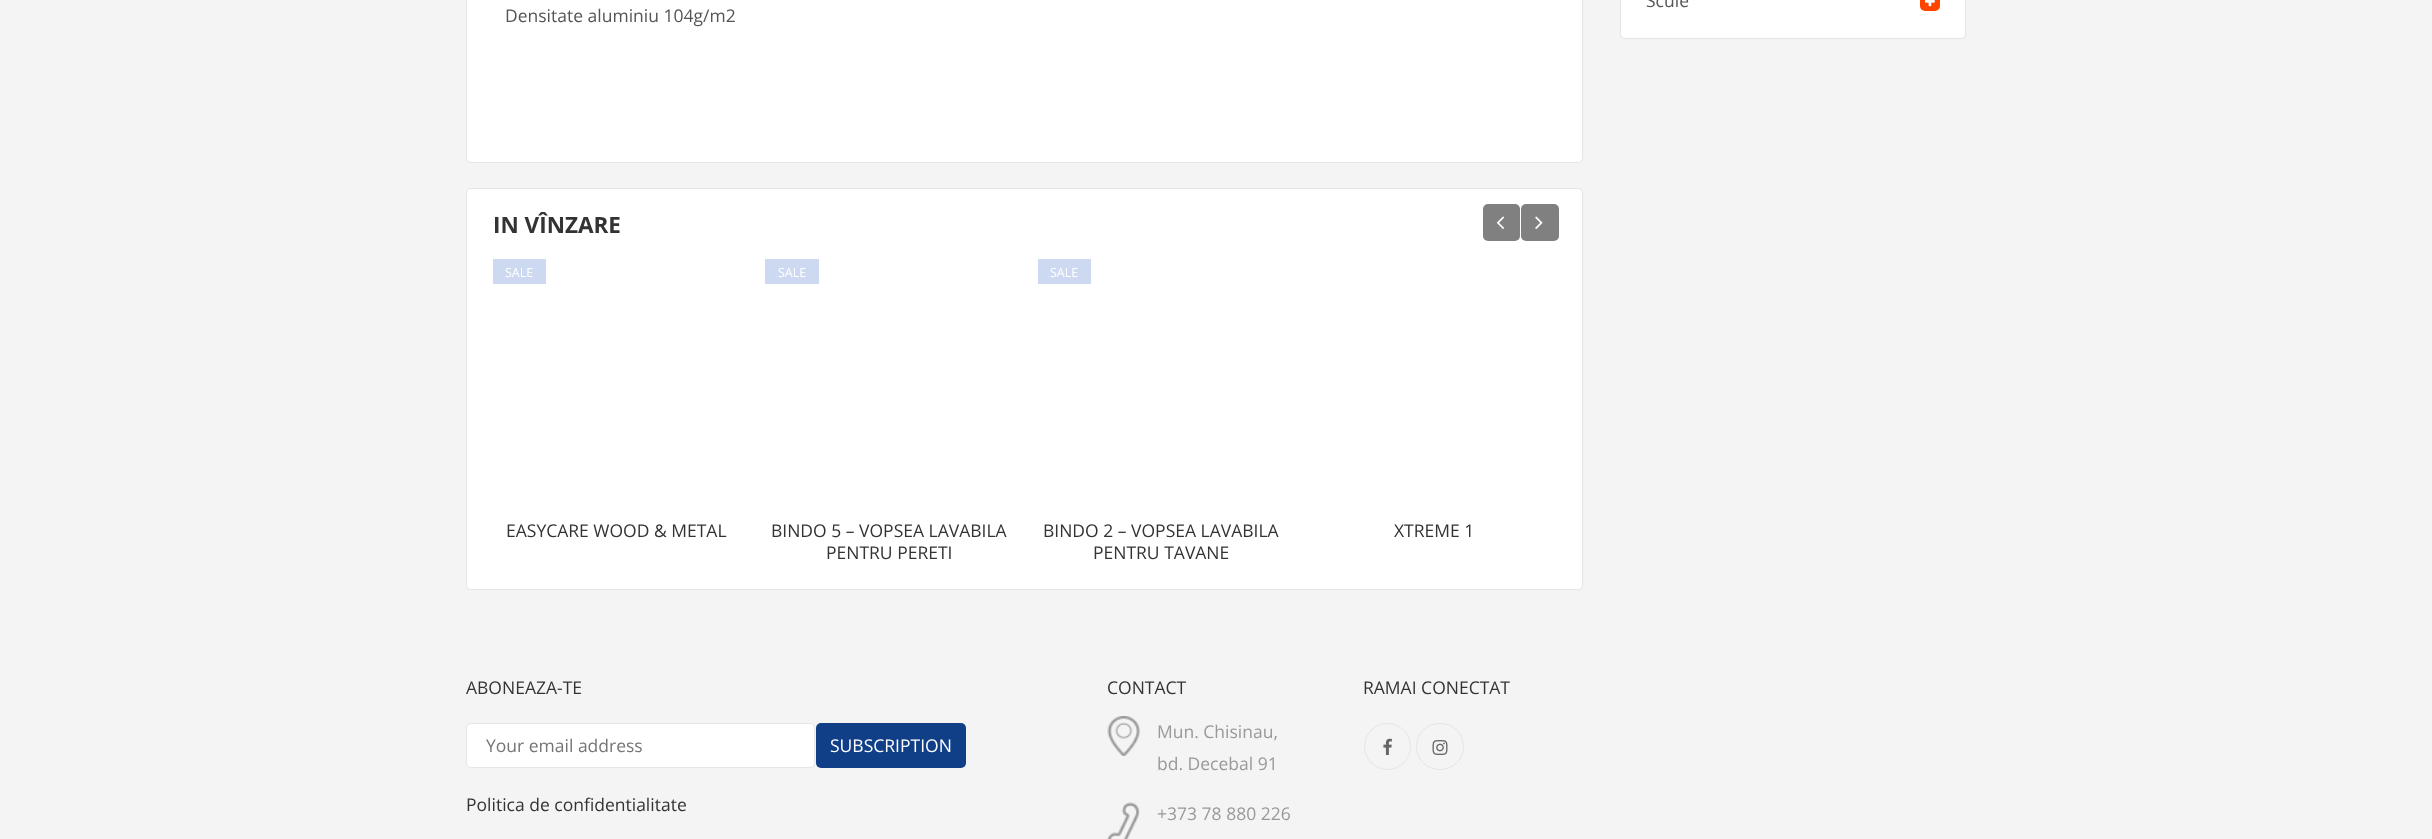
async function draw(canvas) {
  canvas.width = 2432;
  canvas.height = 839;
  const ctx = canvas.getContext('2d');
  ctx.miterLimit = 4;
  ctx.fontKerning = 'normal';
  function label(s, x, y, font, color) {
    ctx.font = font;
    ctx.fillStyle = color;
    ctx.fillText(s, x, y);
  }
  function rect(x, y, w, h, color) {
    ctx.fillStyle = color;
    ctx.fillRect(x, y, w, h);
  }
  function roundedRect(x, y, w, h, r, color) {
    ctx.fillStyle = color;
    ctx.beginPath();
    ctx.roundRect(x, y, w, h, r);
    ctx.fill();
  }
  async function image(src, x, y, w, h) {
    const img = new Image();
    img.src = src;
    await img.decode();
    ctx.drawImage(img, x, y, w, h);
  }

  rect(0, 0, 2432, 839, '#f4f4f4');
  ctx.fillStyle = '#fff';
  ctx.beginPath();
  ctx.roundRect(1620.5, -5.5, 345, 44, 4.5);
  ctx.fill();
  ctx.strokeStyle = '#e5e5e5';
  ctx.stroke();
  label('Scule', 1646, 7, '17.5px Open Sans', '#555');
  roundedRect(1920, -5, 20, 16, 5, '#f40');
  await image('assets/img1.png', 1925, 0, 10, 7);
  ctx.fillStyle = '#fff';
  ctx.beginPath();
  ctx.roundRect(466.5, -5.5, 1116, 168, 4.5);
  ctx.fill();
  ctx.stroke();
  label('Densitate aluminiu 104g/m2', 505, 22, '17.5px Open Sans', '#555');
  ctx.fillStyle = '#fff';
  ctx.beginPath();
  ctx.roundRect(466.5, 188.5, 1116, 401, 4.5);
  ctx.fill();
  ctx.stroke();
  label('IN VÎNZARE', 493, 233, 'bold 22.5px Open Sans', '#333');
  roundedRect(1483, 204, 37, 37, 5, '#808080');
  await image('assets/img2.png', 1496, 216, 9, 13);
  roundedRect(1521, 204, 38, 37, 5, '#808080');
  await image('assets/img3.png', 1535, 216, 8, 13);
  rect(493, 259, 53, 25, '#cdd9f1');
  label('SALE', 505, 277, '12.5px Open Sans', '#fff');
  label('EASYCARE WOOD & METAL', 506, 537, '17.5px Open Sans', '#333');
  rect(765, 259, 54, 25, '#cdd9f1');
  label('SALE', 778, 277, '12.5px Open Sans', '#fff');
  label('BINDO 5 – VOPSEA LAVABILA', 771, 537, '17.5px Open Sans', '#333');
  label('PENTRU PERETI', 826, 559, '17.5px Open Sans', '#333');
  rect(1038, 259, 53, 25, '#cdd9f1');
  label('SALE', 1050, 277, '12.5px Open Sans', '#fff');
  label('BINDO 2 – VOPSEA LAVABILA', 1043, 537, '17.5px Open Sans', '#333');
  label('PENTRU TAVANE', 1093, 559, '17.5px Open Sans', '#333');
  label('XTREME 1', 1394, 537, '17.5px Open Sans', '#333');
  label('ABONEAZA-TE', 466, 694, '17.5px Open Sans', '#333');
  ctx.fillStyle = '#fff';
  ctx.beginPath();
  ctx.roundRect(466.5, 723.5, 348, 44, 4.5);
  ctx.fill();
  ctx.stroke();
  label('Your email address', 486, 752, '17.5px Open Sans', '#757575');
  roundedRect(816, 723, 150, 45, 5, '#103f87');
  label('SUBSCRIPTION', 830, 752, '17.5px Open Sans', '#fff');
  label('Politica de confidentialitate', 466, 811, '17.5px Open Sans', '#333');
  label('CONTACT', 1107, 694, '17.5px Open Sans', '#333');
  await image('assets/img4.png', 1107, 716, 33, 40);
  label('Mun. Chisinau,', 1157, 738, '17.5px Open Sans', '#999');
  label('bd. Decebal 91', 1157, 770, '17.5px Open Sans', '#999');
  await image('assets/img5.png', 1107, 802, 33, 37);
  label('+373 78 880 226', 1157, 820, '17.5px Open Sans', '#999');
  label('RAMAI CONECTAT', 1363, 694, '17.5px Open Sans', '#333');
  ctx.beginPath();
  ctx.arc(1387.5, 746.5, 23, 0, 2 * Math.PI);
  ctx.stroke();
  await image('assets/img6.png', 1383, 738, 9, 17);
  ctx.beginPath();
  ctx.roundRect(1416.5, 723.5, 47, 46, 23);
  ctx.stroke();
  await image('assets/img7.png', 1432, 740, 16, 15);
}

draw(document.querySelector('canvas'));
